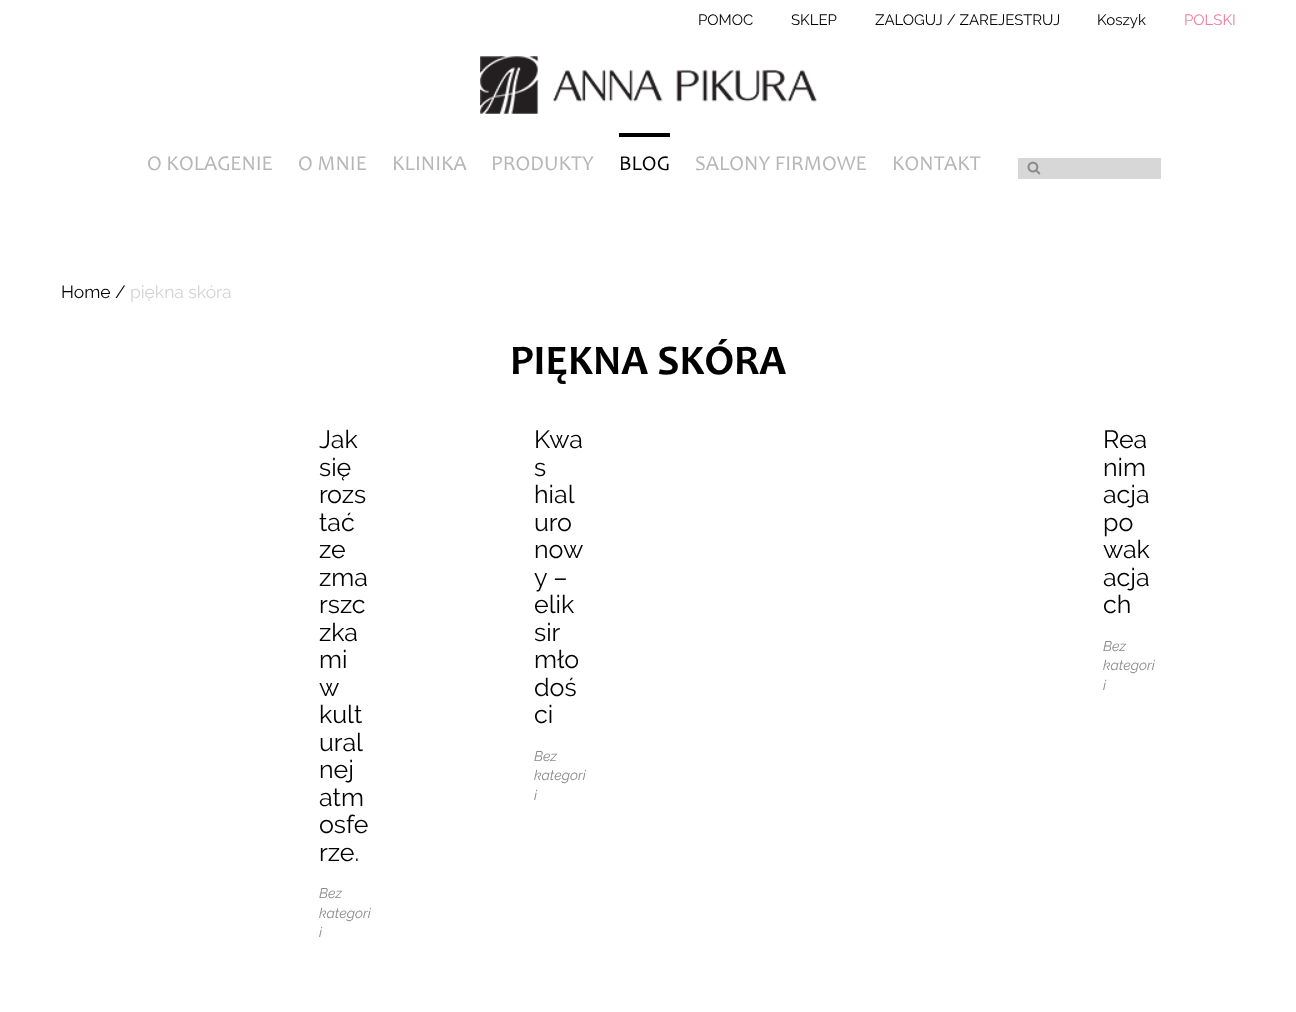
async function draw(canvas) {
  canvas.width = 1296;
  canvas.height = 1012;
  const ctx = canvas.getContext('2d');
  ctx.miterLimit = 4;
  ctx.fontKerning = 'normal';
  function label(s, x, y, font, color) {
    ctx.font = font;
    ctx.fillStyle = color;
    ctx.fillText(s, x, y);
  }
  function rect(x, y, w, h, color) {
    ctx.fillStyle = color;
    ctx.fillRect(x, y, w, h);
  }
  async function image(src, x, y, w, h) {
    const img = new Image();
    img.src = src;
    await img.decode();
    ctx.drawImage(img, x, y, w, h);
  }

  rect(0, 0, 1296, 1012, '#fff');
  label('POMOC', 698, 25, '15px Raleway', '#000');
  label('SKLEP', 791, 25, '15px Raleway', '#000');
  label('ZALOGUJ / ZAREJESTRUJ', 875, 25, '15px Raleway', '#000');
  label('Koszyk', 1097, 25, '15px Raleway', '#000');
  label('POLSKI', 1184, 25, '15px Raleway', '#f07d9c');
  await image('assets/img1.png', 480, 56, 337, 58);
  label('O KOLAGENIE', 147, 170, '21.25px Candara', '#b6b6b8');
  label('O MNIE', 298, 170, '21.25px Candara', '#b6b6b8');
  label('KLINIKA', 392, 170, '21.25px Candara', '#b6b6b8');
  label('PRODUKTY', 491, 170, '21.25px Candara', '#b6b6b8');
  rect(619, 133, 51, 4, '#000');
  label('BLOG', 619, 170, '21.25px Candara', '#000');
  label('SALONY FIRMOWE', 695, 170, '21.25px Candara', '#b6b6b8');
  label('KONTAKT', 892, 170, '21.25px Candara', '#b6b6b8');
  rect(1018, 158, 143, 21, '#d7d7d7');
  await image('assets/img2.png', 1027, 161, 14, 14);
  label('Home /', 61, 298, '17.5px Raleway', '#000');
  label('piękna skóra', 130, 298, '17.5px Raleway', '#d3d3d3');
  label('PIĘKNA SKÓRA', 510, 374, 'bold 42.5px Candara', '#000');
  label('Jak', 319, 448, '25px Raleway', '#000');
  label('się', 319, 476, '25px Raleway', '#000');
  label('rozs', 319, 503, '25px Raleway', '#000');
  label('tać', 319, 531, '25px Raleway', '#000');
  label('ze', 319, 558, '25px Raleway', '#000');
  label('zma', 319, 586, '25px Raleway', '#000');
  label('rszc', 319, 613, '25px Raleway', '#000');
  label('zka', 319, 641, '25px Raleway', '#000');
  label('mi', 319, 668, '25px Raleway', '#000');
  label('w', 319, 696, '25px Raleway', '#000');
  label('kult', 319, 723, '25px Raleway', '#000');
  label('ural', 319, 751, '25px Raleway', '#000');
  label('nej', 319, 778, '25px Raleway', '#000');
  label('atm', 319, 806, '25px Raleway', '#000');
  label('osfe', 319, 833, '25px Raleway', '#000');
  label('rze.', 319, 861, '25px Raleway', '#000');
  label('Bez', 319, 898, 'italic 14px Raleway', '#898989');
  label('kategori', 319, 918, 'italic 14px Raleway', '#898989');
  label('i', 319, 937, 'italic 14px Raleway', '#898989');
  label('Kwa', 534, 448, '25px Raleway', '#000');
  label('s', 534, 476, '25px Raleway', '#000');
  label('hial', 534, 503, '25px Raleway', '#000');
  label('uro', 534, 531, '25px Raleway', '#000');
  label('now', 534, 558, '25px Raleway', '#000');
  label('y –', 534, 586, '25px Raleway', '#000');
  label('elik', 534, 613, '25px Raleway', '#000');
  label('sir', 534, 641, '25px Raleway', '#000');
  label('mło', 534, 668, '25px Raleway', '#000');
  label('doś', 534, 696, '25px Raleway', '#000');
  label('ci', 534, 723, '25px Raleway', '#000');
  label('Bez', 534, 761, 'italic 14px Raleway', '#898989');
  label('kategori', 534, 780, 'italic 14px Raleway', '#898989');
  label('i', 534, 800, 'italic 14px Raleway', '#898989');
  label('Rea', 1103, 448, '25px Raleway', '#000');
  label('nim', 1103, 476, '25px Raleway', '#000');
  label('acja', 1103, 503, '25px Raleway', '#000');
  label('po', 1103, 531, '25px Raleway', '#000');
  label('wak', 1103, 558, '25px Raleway', '#000');
  label('acja', 1103, 586, '25px Raleway', '#000');
  label('ch', 1103, 613, '25px Raleway', '#000');
  label('Bez', 1103, 651, 'italic 14px Raleway', '#898989');
  label('kategori', 1103, 670, 'italic 14px Raleway', '#898989');
  label('i', 1103, 690, 'italic 14px Raleway', '#898989');
}

draw(document.querySelector('canvas'));
